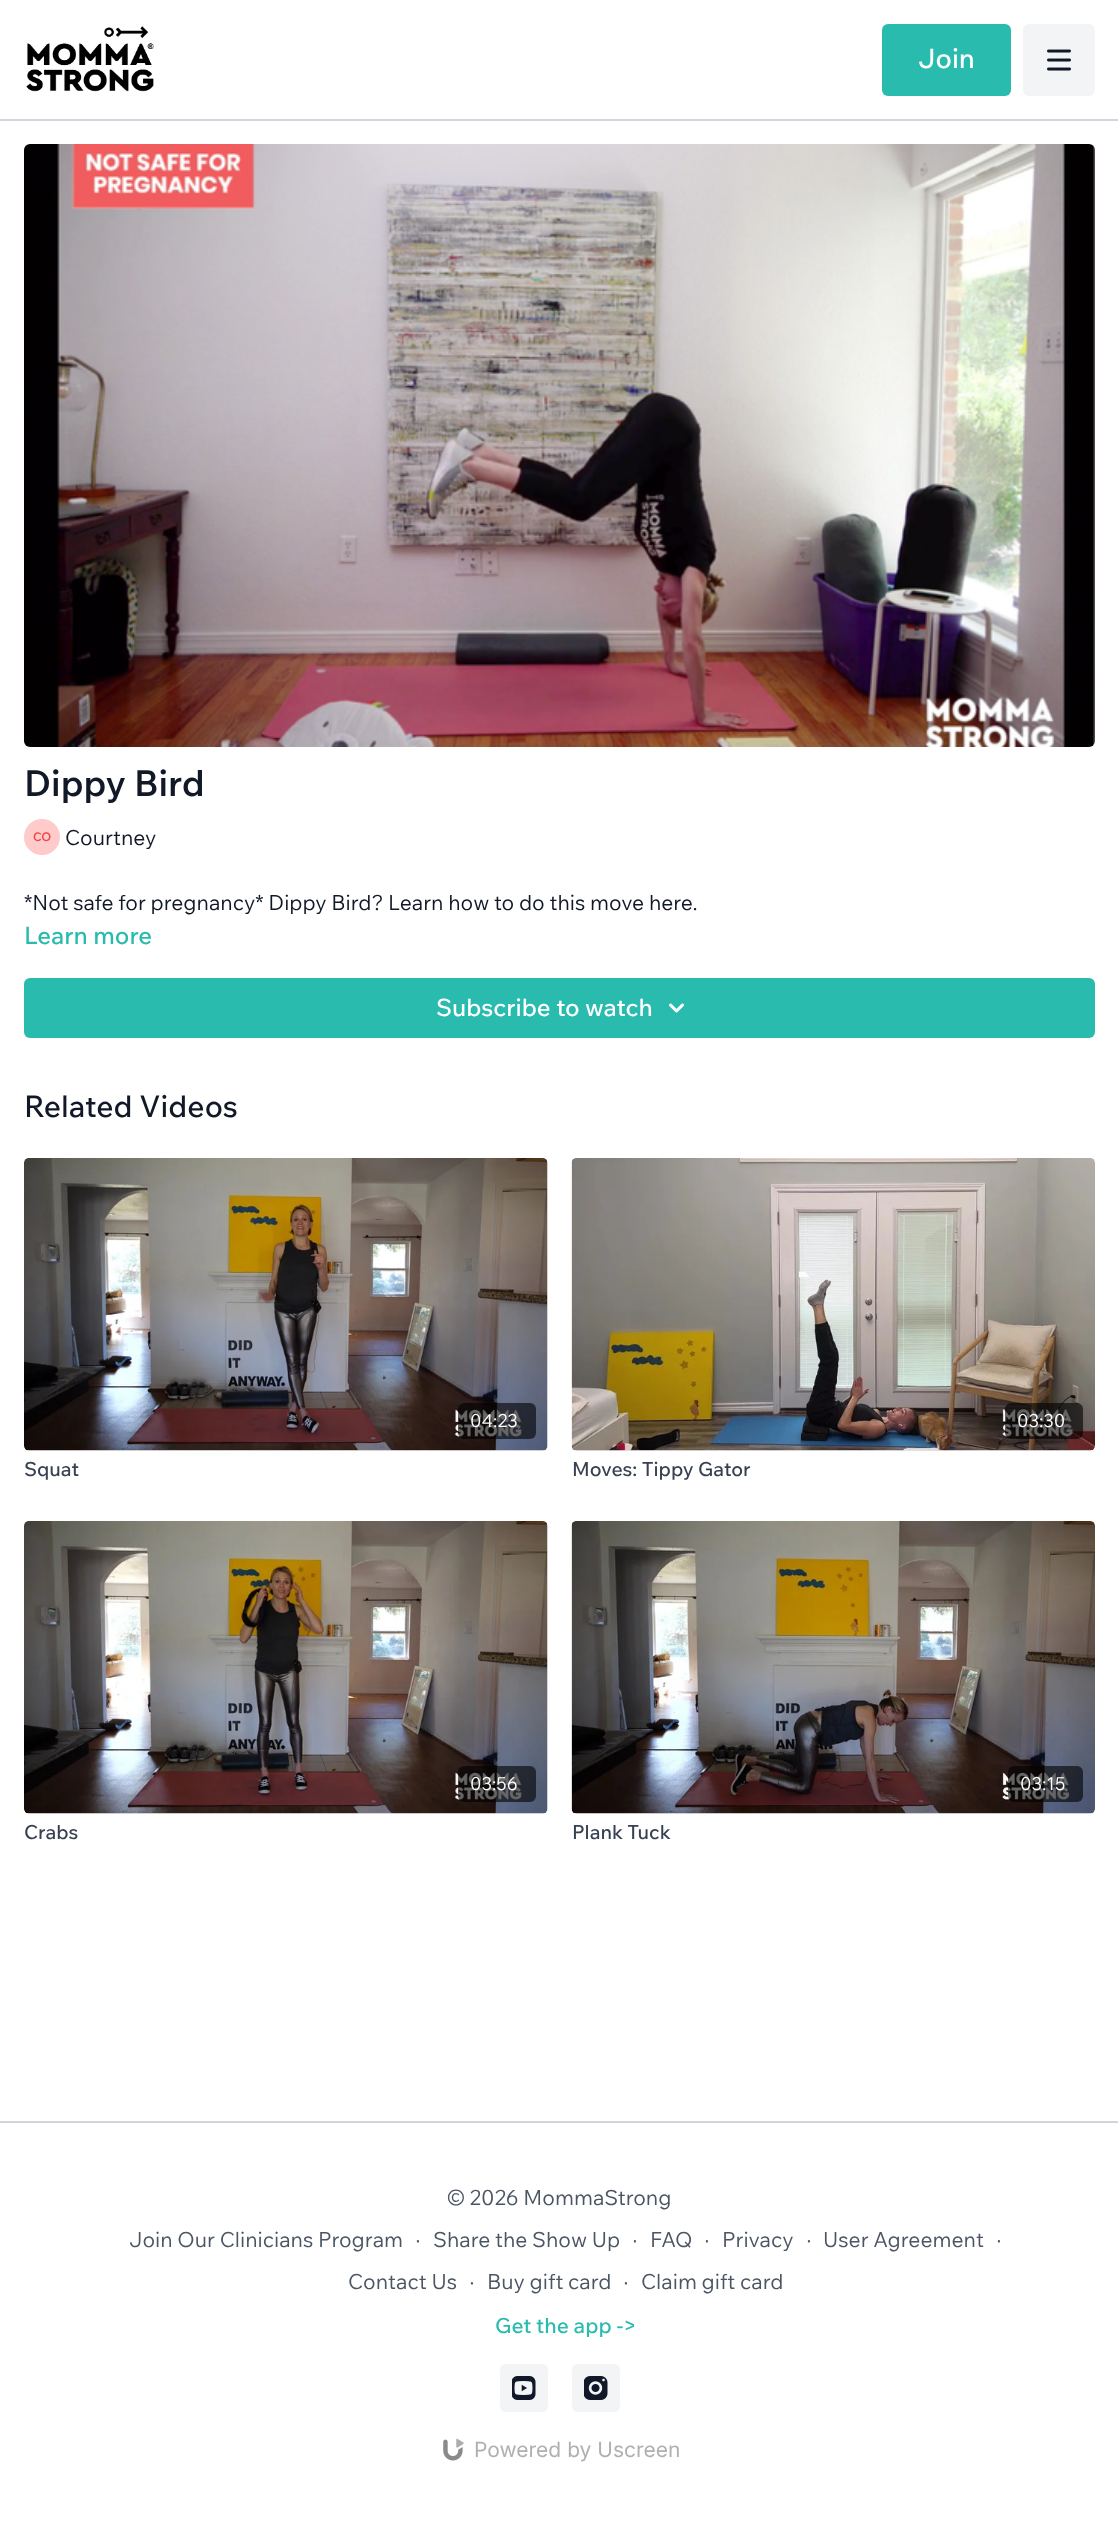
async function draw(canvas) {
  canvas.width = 1118;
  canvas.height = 2536;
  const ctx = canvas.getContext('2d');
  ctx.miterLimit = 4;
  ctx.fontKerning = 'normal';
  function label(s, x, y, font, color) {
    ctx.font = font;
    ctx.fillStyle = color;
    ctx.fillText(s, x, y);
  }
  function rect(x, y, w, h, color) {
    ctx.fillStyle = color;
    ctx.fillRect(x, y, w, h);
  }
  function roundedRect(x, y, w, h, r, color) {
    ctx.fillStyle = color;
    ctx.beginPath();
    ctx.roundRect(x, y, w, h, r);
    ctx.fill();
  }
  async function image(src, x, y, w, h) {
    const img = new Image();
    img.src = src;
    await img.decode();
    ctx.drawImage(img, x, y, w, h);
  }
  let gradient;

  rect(0, 0, 1118, 2536, '#fff');
  rect(0, 119, 1118, 2, '#d1d5db');
  await image('assets/img1.png', 26, 26, 128, 66);
  roundedRect(882, 24, 129, 72, 6, '#2abbaf');
  label('Join', 918, 68, '500 27px Wix Madefor Text', '#fff');
  roundedRect(1023, 24, 72, 72, 6, '#f3f4f6');
  await image('assets/img2.png', 1047, 49, 24, 22);
  await image('assets/img3.png', 24, 144, 1071, 603);
  label('Dippy Bird', 24, 796, '600 36px Wix Madefor Text', '#111827');
  ctx.fillStyle = '#fecaca';
  ctx.beginPath();
  ctx.arc(42, 837, 18, 0, 2 * Math.PI);
  ctx.fill();
  label('CO', 33, 841, '600 12px Wix Madefor Text', '#ef4444');
  label('Courtney', 65, 845, '21px Wix Madefor Text', '#111827');
  label('*Not safe for pregnancy* Dippy Bird? Learn how to do this move here.', 24, 910, '21px Wix Madefor Text', '#111827');
  label('Learn more', 24, 944, '500 24px Wix Madefor Text', '#2abbaf');
  roundedRect(24, 978, 1071, 60, 6, '#2abbaf');
  label('Subscribe to watch', 436, 1016, '500 24px Wix Madefor Text', '#fff');
  await image('assets/img4.png', 669, 1003, 15, 10);
  label('Related Videos', 24, 1117, '500 30px Wix Madefor Text', '#111827');
  gradient = ctx.createLinearGradient(24, 1304, 548, 1304);
  gradient.addColorStop(0.08, '#dedede');
  gradient.addColorStop(0.18, '#e1e1e1');
  gradient.addColorStop(0.33, '#e3e3e3');
  ctx.fillStyle = gradient;
  ctx.beginPath();
  ctx.roundRect(24, 1158, 524, 293, 6);
  ctx.fill();
  await image('assets/img5.png', 24, 1158, 524, 293);
  roundedRect(458, 1403, 78, 36, 6, '#00000099');
  label('04:23', 470, 1427, '18px Wix Madefor Text', '#fff');
  label('Squat', 24, 1476, '500 19.5px Wix Madefor Text', '#374151');
  gradient = ctx.createLinearGradient(572, 1304, 1095, 1304);
  gradient.addColorStop(0.08, '#dedede');
  gradient.addColorStop(0.18, '#e1e1e1');
  gradient.addColorStop(0.33, '#e3e3e3');
  ctx.fillStyle = gradient;
  ctx.beginPath();
  ctx.roundRect(572, 1158, 523, 293, 6);
  ctx.fill();
  await image('assets/img6.png', 571, 1158, 524, 293);
  roundedRect(1005, 1403, 78, 36, 6, '#00000099');
  label('03:30', 1017, 1427, '18px Wix Madefor Text', '#fff');
  label('Moves: Tippy Gator', 572, 1476, '500 19.5px Wix Madefor Text', '#374151');
  gradient = ctx.createLinearGradient(24, 1667, 548, 1667);
  gradient.addColorStop(0.08, '#dedede');
  gradient.addColorStop(0.18, '#e1e1e1');
  gradient.addColorStop(0.33, '#e3e3e3');
  ctx.fillStyle = gradient;
  ctx.beginPath();
  ctx.roundRect(24, 1521, 524, 293, 6);
  ctx.fill();
  await image('assets/img7.png', 24, 1521, 524, 293);
  roundedRect(458, 1766, 78, 36, 6, '#00000099');
  label('03:56', 470, 1790, '18px Wix Madefor Text', '#fff');
  label('Crabs', 24, 1839, '500 19.5px Wix Madefor Text', '#374151');
  gradient = ctx.createLinearGradient(572, 1667, 1095, 1667);
  gradient.addColorStop(0.08, '#dedede');
  gradient.addColorStop(0.18, '#e1e1e1');
  gradient.addColorStop(0.33, '#e3e3e3');
  ctx.fillStyle = gradient;
  ctx.beginPath();
  ctx.roundRect(572, 1521, 523, 293, 6);
  ctx.fill();
  await image('assets/img8.png', 571, 1521, 524, 293);
  roundedRect(1008, 1766, 75, 36, 6, '#00000099');
  label('03:15', 1020, 1790, '18px Wix Madefor Text', '#fff');
  label('Plank Tuck', 572, 1839, '500 19.5px Wix Madefor Text', '#374151');
  rect(0, 2121, 1118, 2, '#d1d5db');
  label('© 2026 MommaStrong', 447, 2205, '21px Wix Madefor Text', '#4b5563');
  label('Join Our Clinicians Program', 129, 2247, '21px Wix Madefor Text', '#4b5563');
  label('∙', 415, 2247, '21px Liberation Sans', '#4b5563');
  label('Share the Show Up', 433, 2247, '21px Wix Madefor Text', '#4b5563');
  label('∙', 632, 2247, '21px Liberation Sans', '#4b5563');
  label('FAQ', 650, 2247, '21px Wix Madefor Text', '#4b5563');
  label('∙', 704, 2247, '21px Liberation Sans', '#4b5563');
  label('Privacy', 722, 2247, '21px Wix Madefor Text', '#4b5563');
  label('∙', 806, 2247, '21px Liberation Sans', '#4b5563');
  label('User Agreement', 823, 2247, '21px Wix Madefor Text', '#4b5563');
  label('∙', 996, 2247, '21px Liberation Sans', '#4b5563');
  label('Contact Us', 348, 2289, '21px Wix Madefor Text', '#4b5563');
  label('∙', 469, 2289, '21px Liberation Sans', '#4b5563');
  label('Buy gift card', 487, 2289, '21px Wix Madefor Text', '#4b5563');
  label('∙', 623, 2289, '21px Liberation Sans', '#4b5563');
  label('Claim gift card', 641, 2289, '21px Wix Madefor Text', '#4b5563');
  label('Get the app ->', 495, 2333, '500 21px Wix Madefor Text', '#2abbaf');
  roundedRect(500, 2364, 48, 48, 6, '#f3f4f6');
  await image('assets/img9.png', 512, 2376, 24, 24);
  roundedRect(572, 2364, 48, 48, 6, '#f3f4f6');
  await image('assets/img10.png', 584, 2376, 24, 24);
  await image('assets/img11.png', 443, 2438, 21, 23);
  label('Powered by Uscreen', 474, 2457, '21px Inter', '#b0b0b0');
}

draw(document.querySelector('canvas'));
